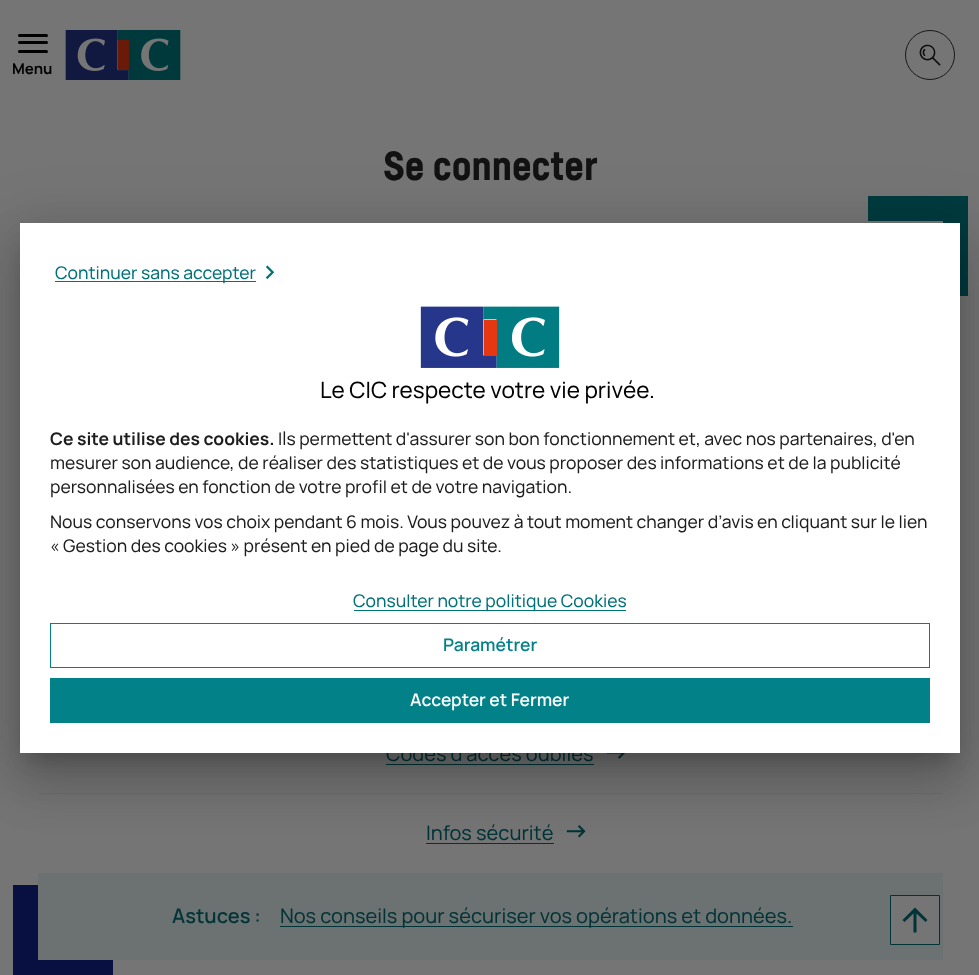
async function draw(canvas) {
  canvas.width = 979;
  canvas.height = 975;
  const ctx = canvas.getContext('2d');
  ctx.miterLimit = 4;
  ctx.fontKerning = 'normal';
  function label(s, x, y, font, color) {
    ctx.font = font;
    ctx.fillStyle = color;
    ctx.fillText(s, x, y);
  }
  function rect(x, y, w, h, color) {
    ctx.fillStyle = color;
    ctx.fillRect(x, y, w, h);
  }
  function roundedRect(x, y, w, h, r, color) {
    ctx.fillStyle = color;
    ctx.beginPath();
    ctx.roundRect(x, y, w, h, r);
    ctx.fill();
  }
  async function image(src, x, y, w, h) {
    const img = new Image();
    img.src = src;
    await img.decode();
    ctx.drawImage(img, x, y, w, h);
  }
  let path;

  rect(0, 0, 979, 975, '#757575');
  roundedRect(18, 34, 30, 3, 1.5, '#000');
  roundedRect(18, 41, 30, 3, 1.5, '#000');
  roundedRect(18, 50, 30, 3, 1.5, '#000');
  label('Menu', 12, 74, 'bold 15px Manrope', '#000');
  await image('assets/img1.png', 65, 30, 116, 50);
  ctx.beginPath();
  ctx.arc(930, 55, 24.5, 0, 2 * Math.PI);
  ctx.strokeStyle = '#19191b';
  ctx.stroke();
  await image('assets/img2.png', 919, 44, 22, 22);
  label('Se connecter', 383, 180, '900 40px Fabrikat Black', '#121212');
  rect(868, 196, 100, 100, '#013b3f');
  rect(868, 221, 75, 75, '#757575');
  rect(13, 885, 100, 90, '#071040');
  label('Codes d\'accès oubliés', 386, 761, '20px Manrope', '#003437');
  rect(386, 764, 208, 1, '#003437');
  await image('assets/img3.png', 606, 753, 19, 6);
  rect(38, 793, 905, 1, '#6f6f6f');
  label('Infos sécurité', 426, 840, '20px Manrope', '#003437');
  rect(426, 843, 128, 1, '#003437');
  await image('assets/img4.png', 566, 825, 20, 13);
  rect(38, 873, 905, 87, '#6c7171');
  label('Astuces :', 172, 923, '600 20px Manrope', '#003437');
  rect(280, 926, 513, 1, '#003437');
  label('Nos conseils pour sécuriser vos opérations et données.', 280, 923, '20px Manrope', '#003437');
  ctx.fillStyle = '#757575';
  ctx.beginPath();
  ctx.rect(890.5, 895.5, 49, 49);
  ctx.fill();
  ctx.strokeStyle = '#003437';
  ctx.stroke();
  ctx.fillStyle = '#003437';
  path = new Path2D('M902.5 920L904.5 922L913.5 913.5V932.5H916.5V913.5L925.5 922L927.5 920L915 907.5Z');
  ctx.fill(path);
  ctx.fillStyle = '#0000001f';
  ctx.filter = 'blur(29px)';
  ctx.beginPath();
  ctx.rect(10, 224, 960, 550);
  ctx.fill();
  ctx.filter = 'none';
  ctx.fillStyle = '#00000024';
  ctx.filter = 'blur(24px)';
  ctx.beginPath();
  ctx.rect(16, 249, 948, 537);
  ctx.fill();
  ctx.filter = 'none';
  ctx.fillStyle = '#00000033';
  ctx.filter = 'blur(9.5px)';
  ctx.beginPath();
  ctx.rect(29, 245, 922, 513);
  ctx.fill();
  ctx.filter = 'none';
  rect(20, 223, 940, 530, '#fff');
  rect(55, 281, 201, 1, '#007178');
  label('Continuer sans accepter', 55, 279, '17.5px Manrope', '#007178');
  await image('assets/img5.png', 265, 265, 10, 15);
  await image('assets/img6.png', 420, 306, 140, 62);
  label('Le CIC respecte votre vie privée.', 320, 398, '22.5px Manrope', '#000');
  label('Ce site utilise des cookies.', 50, 445, 'bold 17.5px Manrope', '#1d1d1f');
  label('Ils permettent d\'assurer son bon fonctionnement et, avec nos partenaires, d\'en', 278, 445, '17.5px Manrope', '#1d1d1f');
  label('mesurer son audience, de réaliser des statistiques et de vous proposer des informations et de la publicité', 50, 469, '17.5px Manrope', '#1d1d1f');
  label('personnalisées en fonction de votre profil et de votre navigation.', 50, 493, '17.5px Manrope', '#1d1d1f');
  label('Nous conservons vos choix pendant 6 mois. Vous pouvez à tout moment changer d’avis en cliquant sur le lien', 50, 528, '17.5px Manrope', '#1d1d1f');
  label('« Gestion des cookies » présent en pied de page du site.', 50, 552, '17.5px Manrope', '#1d1d1f');
  rect(354, 610, 272, 1, '#007178');
  label('Consulter notre politique Cookies', 353, 607, '17.5px Manrope', '#007178');
  ctx.strokeStyle = '#038189';
  ctx.strokeRect(50.5, 623.5, 879, 44);
  label('Paramétrer', 443, 651, '600 17.5px Manrope', '#038189');
  rect(50, 678, 880, 45, '#038189');
  label('Accepter et Fermer', 410, 706, '600 17.5px Manrope', '#fff');
}

draw(document.querySelector('canvas'));
